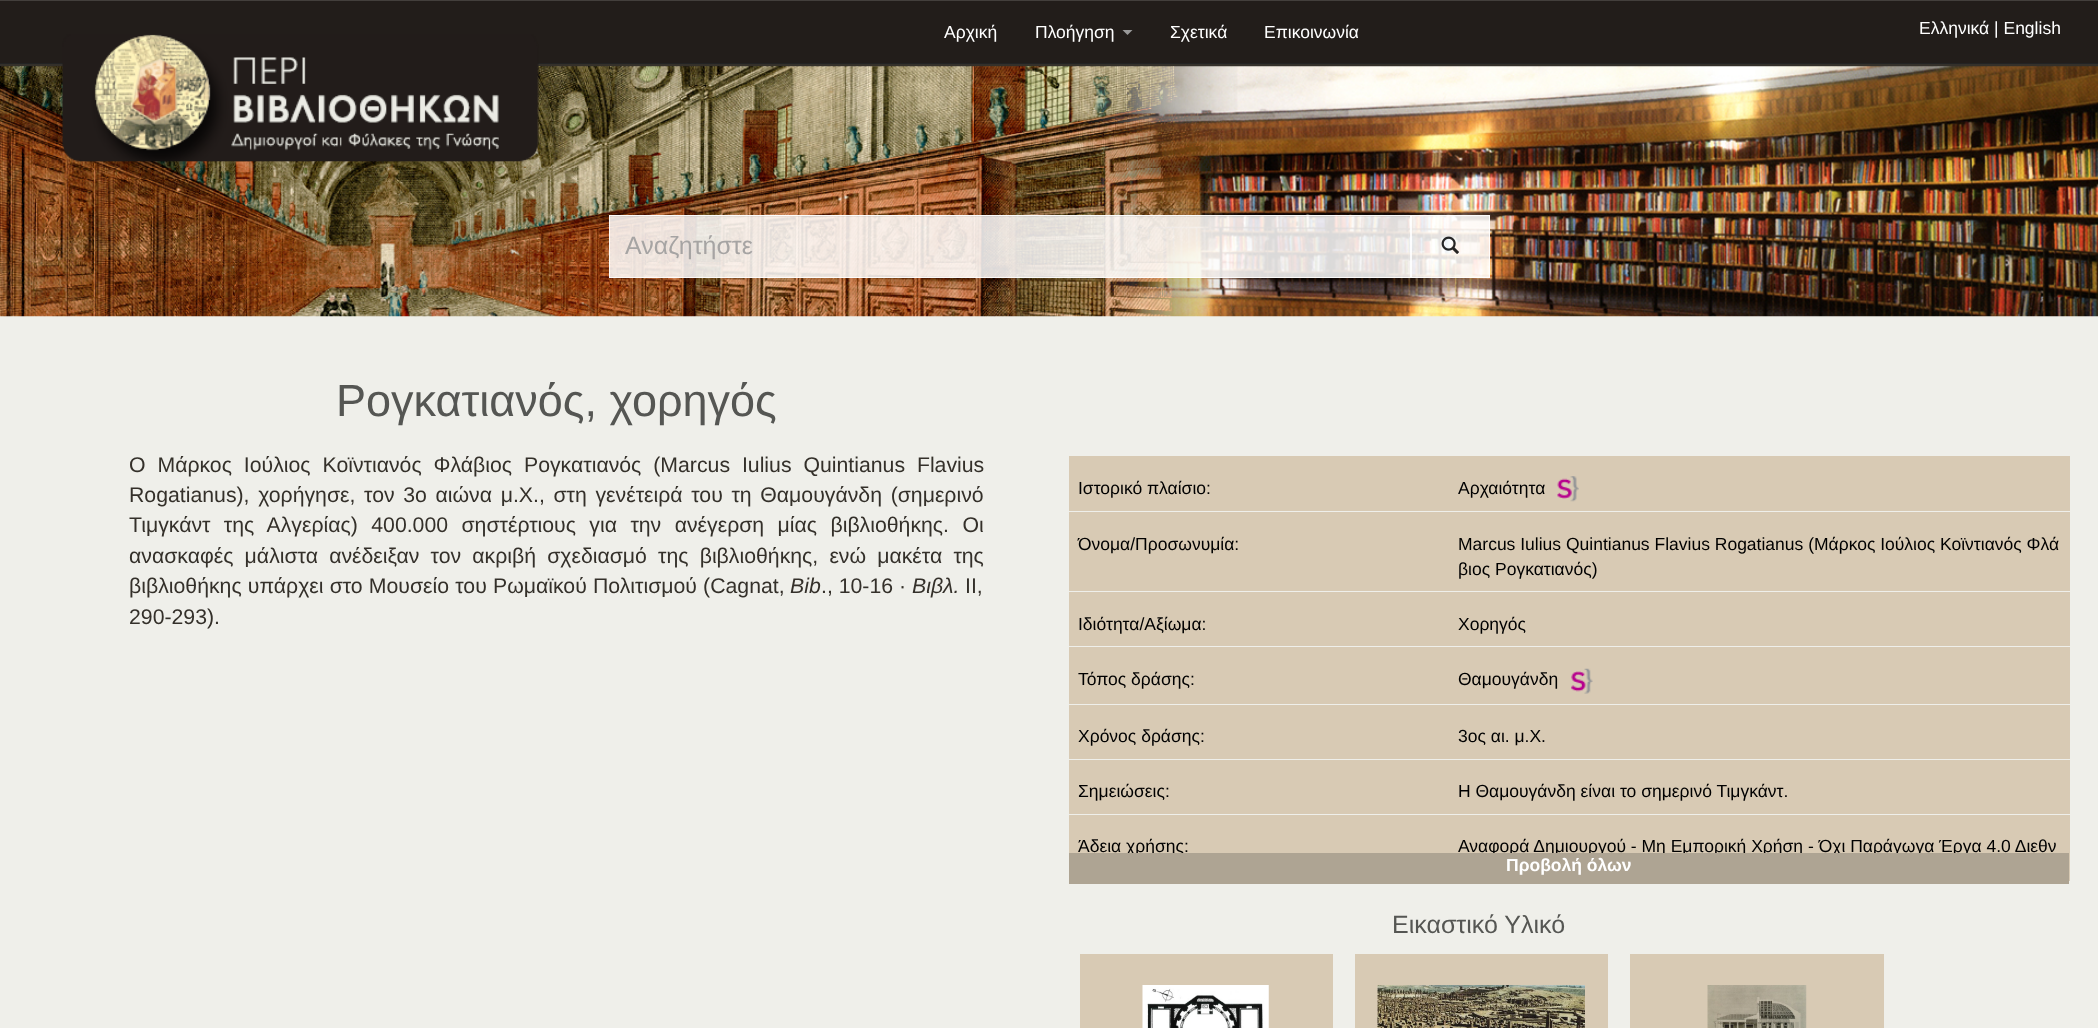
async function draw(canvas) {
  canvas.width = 2098;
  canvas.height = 1028;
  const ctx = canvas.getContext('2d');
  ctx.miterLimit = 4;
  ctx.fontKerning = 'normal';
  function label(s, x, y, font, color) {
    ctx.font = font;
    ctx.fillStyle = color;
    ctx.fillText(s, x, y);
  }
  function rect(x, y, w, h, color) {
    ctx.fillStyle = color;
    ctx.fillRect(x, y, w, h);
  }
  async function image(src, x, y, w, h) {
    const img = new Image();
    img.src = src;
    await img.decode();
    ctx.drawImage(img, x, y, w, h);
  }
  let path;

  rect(0, 0, 2098, 1028, '#34302a');
  rect(0, 1, 2098, 62, '#221d1a');
  rect(0, 0, 2098, 1, '#433f3c');
  rect(0, 63, 2098, 1, '#232323');
  label('Αρχική', 944, 38, '17.5px Liberation Sans', '#fff');
  label('Πλοήγηση', 1035, 38, '17.5px Liberation Sans', '#fff');
  ctx.fillStyle = '#999';
  path = new Path2D('M1122.5 30H1132.5L1127.5 35Z');
  ctx.fill(path);
  label('Σχετικά', 1170, 38, '17.5px Liberation Sans', '#fff');
  label('Επικοινωνία', 1264, 38, '17.5px Liberation Sans', '#fff');
  label('Ελληνικά | English', 1919, 34, '17.5px Liberation Sans', '#fff');
  rect(0, 316, 2098, 712, '#efefea');
  await image('assets/img1.png', 0, 66, 2098, 251);
  await image('assets/img2.png', 62, 34, 477, 138);
  rect(609, 215, 802, 63, '#ffffffd9');
  rect(610, 216, 800, 1, '#0000000f');
  ctx.strokeStyle = '#ffffffd9';
  ctx.strokeRect(609.5, 215.5, 801, 62);
  label('Αναζητήστε', 625, 254, '25px Liberation Sans', '#a6a4a3');
  ctx.save();
  path = new Path2D('M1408 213H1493V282H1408ZM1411 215H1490V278H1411Z');
  ctx.clip(path, 'evenodd');
  ctx.fillStyle = '#0000000f';
  ctx.filter = 'blur(0.5px)';
  ctx.beginPath();
  ctx.rect(1411, 216, 79, 63);
  ctx.fill();
  ctx.filter = 'none';
  ctx.restore();
  rect(1411, 215, 79, 63, '#ffffffd9');
  rect(1413, 216, 76, 1, '#ffffff21');
  ctx.strokeRect(1411.5, 215.5, 78, 62);
  await image('assets/img3.png', 1441, 236, 18, 18);
  label('Ρογκατιανός, χορηγός', 336, 416, '45px Liberation Sans', '#555653');
  ctx.wordSpacing = '6px';
  label('Ο Μάρκος Ιούλιος Κοϊντιανός Φλάβιος Ρογκατιανός (Marcus Iulius Quintianus Flavius', 129, 472, '21.25px Liberation Sans', '#34302a');
  ctx.wordSpacing = '2.75px';
  label('Rogatianus), χορήγησε, τον 3o αιώνα μ.Χ., στη γενέτειρά του τη Θαμουγάνδη (σημερινό', 129, 502, '21.25px Liberation Sans', '#34302a');
  ctx.wordSpacing = '7.5px';
  label('Τιμγκάντ της Αλγερίας) 400.000 σηστέρτιους για την ανέγερση μίας βιβλιοθήκης. Οι', 129, 532, '21.25px Liberation Sans', '#34302a');
  ctx.wordSpacing = '5.25px';
  label('ανασκαφές μάλιστα ανέδειξαν τον ακριβή σχεδιασμό της βιβλιοθήκης, ενώ μακέτα της', 129, 563, '21.25px Liberation Sans', '#34302a');
  ctx.wordSpacing = '0.25px';
  label('βιβλιοθήκης υπάρχει στο Μουσείο του Ρωμαϊκού Πολιτισμού (Cagnat,', 129, 593, '21.25px Liberation Sans', '#34302a');
  ctx.wordSpacing = '0px';
  label('Bib', 790, 593, 'italic 21.25px Liberation Sans', '#34302a');
  label('., 10-16 ·', 821, 593, '21.25px Liberation Sans', '#34302a');
  label('Βιβλ.', 912, 593, 'italic 21.25px Liberation Sans', '#34302a');
  label('II,', 965, 593, '21.25px Liberation Sans', '#34302a');
  label('290-293).', 129, 624, '21.25px Liberation Sans', '#34302a');
  rect(1069, 456, 1001, 425, '#d8cab4');
  rect(1069, 511, 1001, 1, '#efefea');
  label('Ιστορικό πλαίσιο:', 1078, 494, '17.5px Liberation Sans', '#000');
  label('Αρχαιότητα', 1458, 494, '17.5px Liberation Sans', '#000');
  await image('assets/img4.png', 1557, 476, 22, 26);
  rect(1069, 591, 1001, 1, '#efefea');
  label('Όνομα/Προσωνυμία:', 1078, 550, '17.5px Liberation Sans', '#000');
  label('Marcus Iulius Quintianus Flavius Rogatianus (Μάρκος Ιούλιος Κοϊντιανός Φλά', 1458, 550, '17.5px Liberation Sans', '#000');
  label('βιος Ρογκατιανός)', 1458, 575, '17.5px Liberation Sans', '#000');
  rect(1069, 646, 1001, 1, '#efefea');
  label('Ιδιότητα/Αξίωμα:', 1078, 630, '17.5px Liberation Sans', '#000');
  label('Χορηγός', 1458, 630, '17.5px Liberation Sans', '#000');
  rect(1069, 704, 1001, 1, '#efefea');
  label('Τόπος δράσης:', 1078, 685, '17.5px Liberation Sans', '#000');
  label('Θαμουγάνδη', 1458, 685, '17.5px Liberation Sans', '#000');
  await image('assets/img5.png', 1571, 668, 22, 26);
  rect(1069, 759, 1001, 1, '#efefea');
  label('Χρόνος δράσης:', 1078, 742, '17.5px Liberation Sans', '#000');
  label('3ος αι. μ.Χ.', 1458, 742, '17.5px Liberation Sans', '#000');
  rect(1069, 814, 1001, 1, '#efefea');
  label('Σημειώσεις:', 1078, 797, '17.5px Liberation Sans', '#000');
  label('Η Θαμουγάνδη είναι το σημερινό Τιμγκάντ.', 1458, 797, '17.5px Liberation Sans', '#000');
  label('Άδεια χρήσης:', 1078, 852, '17.5px Liberation Sans', '#000');
  label('Αναφορά Δημιουργού - Μη Εμπορική Χρήση - Όχι Παράγωγα Έργα 4.0 Διεθν', 1458, 852, '17.5px Liberation Sans', '#000');
  rect(1069, 853, 1000, 31, '#aea493');
  label('Προβολή όλων', 1506, 871, 'bold 17.5px Liberation Sans', '#fff');
  label('Εικαστικό Υλικό', 1392, 933, '25px Liberation Sans', '#555653');
  rect(1080, 954, 253, 74, '#d8cab4');
  await image('assets/img6.png', 1142, 985, 127, 43);
  rect(1355, 954, 253, 74, '#d8cab4');
  await image('assets/img7.png', 1377, 985, 208, 43);
  rect(1630, 954, 254, 74, '#d8cab4');
  await image('assets/img8.png', 1707, 985, 100, 43);
}

draw(document.querySelector('canvas'));
